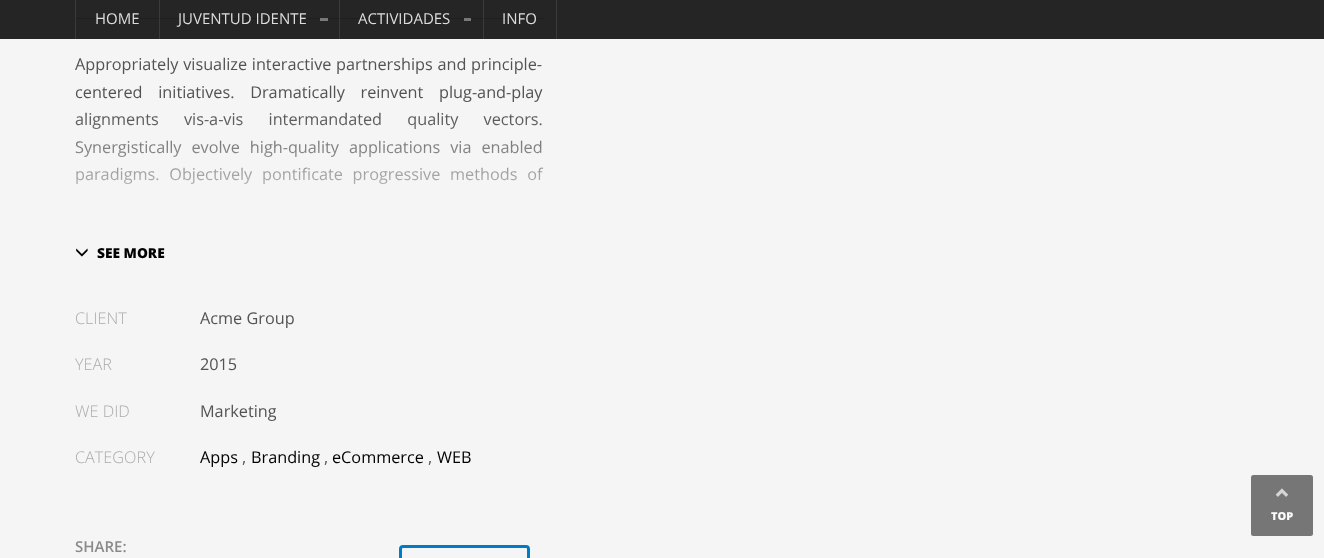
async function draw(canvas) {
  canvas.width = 1324;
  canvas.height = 558;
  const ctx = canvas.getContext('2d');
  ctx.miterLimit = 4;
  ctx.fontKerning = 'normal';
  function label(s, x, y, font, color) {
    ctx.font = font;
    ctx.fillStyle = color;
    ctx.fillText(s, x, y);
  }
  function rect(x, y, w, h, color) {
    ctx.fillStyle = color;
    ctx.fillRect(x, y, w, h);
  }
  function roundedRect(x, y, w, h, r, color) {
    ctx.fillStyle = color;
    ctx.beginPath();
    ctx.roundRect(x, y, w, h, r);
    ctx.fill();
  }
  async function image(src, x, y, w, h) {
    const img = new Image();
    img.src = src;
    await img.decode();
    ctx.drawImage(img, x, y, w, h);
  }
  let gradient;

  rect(0, 0, 1324, 558, '#f5f5f5');
  rect(0, 0, 1324, 39, '#252525');
  rect(483, 0, 1, 39, '#3b3b3b');
  rect(464, 19, 7, 2, '#797979');
  rect(339, 0, 1, 39, '#3b3b3b');
  rect(320, 19, 8, 2, '#797979');
  rect(159, 0, 1, 39, '#3b3b3b');
  rect(75, 0, 1, 39, '#3b3b3b');
  rect(75, 18, 468, 1, '#1e1e1e');
  label('HOME', 95, 24, '15px Open Sans', '#ddd');
  label('JUVENTUD IDENTE', 178, 24, '15px Open Sans', '#ddd');
  label('ACTIVIDADES', 358, 24, '15px Open Sans', '#ddd');
  rect(556, 0, 1, 39, '#3b3b3b');
  label('INFO', 502, 24, '15px Open Sans', '#ddd');
  rect(483, 18, 1, 1, '#353535');
  rect(464, 18, 7, 1, '#757575');
  rect(339, 18, 1, 1, '#353535');
  rect(320, 18, 8, 1, '#757575');
  rect(159, 18, 1, 1, '#353535');
  rect(75, 18, 1, 1, '#353535');
  ctx.wordSpacing = '0.5px';
  label('Appropriately visualize interactive partnerships and principle-', 75, 70, '16.25px Open Sans', '#535353');
  ctx.wordSpacing = '11.5px';
  label('centered initiatives. Dramatically reinvent plug-and-play', 75, 98, '16.25px Open Sans', '#535353');
  ctx.wordSpacing = '21px';
  label('alignments vis-a-vis intermandated quality vectors.', 75, 125, '16.25px Open Sans', '#535353');
  ctx.wordSpacing = '5.75px';
  label('Synergistically evolve high-quality applications via enabled', 75, 153, '16.25px Open Sans', '#535353');
  ctx.wordSpacing = '5.5px';
  label('paradigms. Objectively pontificate progressive methods of', 75, 180, '16.25px Open Sans', '#535353');
  gradient = ctx.createLinearGradient(309, 112, 309, 238);
  gradient.addColorStop(0, '#f5f5f500');
  gradient.addColorStop(1, '#f5f5f5');
  ctx.fillStyle = gradient;
  ctx.fillRect(75, 115, 468, 69);
  await image('assets/img1.png', 76, 248, 12, 9);
  ctx.wordSpacing = '0px';
  label('SEE MORE', 97, 258, '800 13.75px Open Sans', '#000');
  label('CLIENT', 75, 324, '300 16.25px Open Sans', '#ababab');
  label('Acme Group', 200, 324, '16.25px Open Sans', '#535353');
  label('YEAR', 75, 370, '300 16.25px Open Sans', '#ababab');
  label('2015', 200, 370, '16.25px Open Sans', '#535353');
  label('WE DID', 75, 417, '300 16.25px Open Sans', '#ababab');
  ctx.save();
  ctx.beginPath();
  ctx.rect(200, 396, 76, 28);
  ctx.clip();
  label('Marketing', 200, 417, '16.25px Open Sans', '#535353');
  ctx.restore();
  label('CATEGORY', 75, 463, '300 16.25px Open Sans', '#ababab');
  label('Apps', 200, 463, '16.25px Open Sans', '#000');
  label('Branding', 251, 463, '16.25px Open Sans', '#000');
  label('eCommerce', 332, 463, '16.25px Open Sans', '#000');
  label('WEB', 437, 463, '16.25px Open Sans', '#000');
  label(',', 242, 463, '16.25px Open Sans', '#535353');
  label(',', 324, 463, '16.25px Open Sans', '#535353');
  label(',', 428, 463, '16.25px Open Sans', '#535353');
  label('SHARE:', 75, 552, '600 15px Open Sans', '#8a8a8a');
  ctx.beginPath();
  ctx.roundRect(400.5, 546.5, 128, 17, 2.5);
  ctx.strokeStyle = '#007cc7';
  ctx.lineWidth = 3;
  ctx.stroke();
  roundedRect(1251, 475, 62, 61, 2.5, '#767676');
  await image('assets/img2.png', 1275, 488, 14, 9);
  label('TOP', 1271, 520, '800 11px Open Sans', '#fcfcfc');
}

draw(document.querySelector('canvas'));
